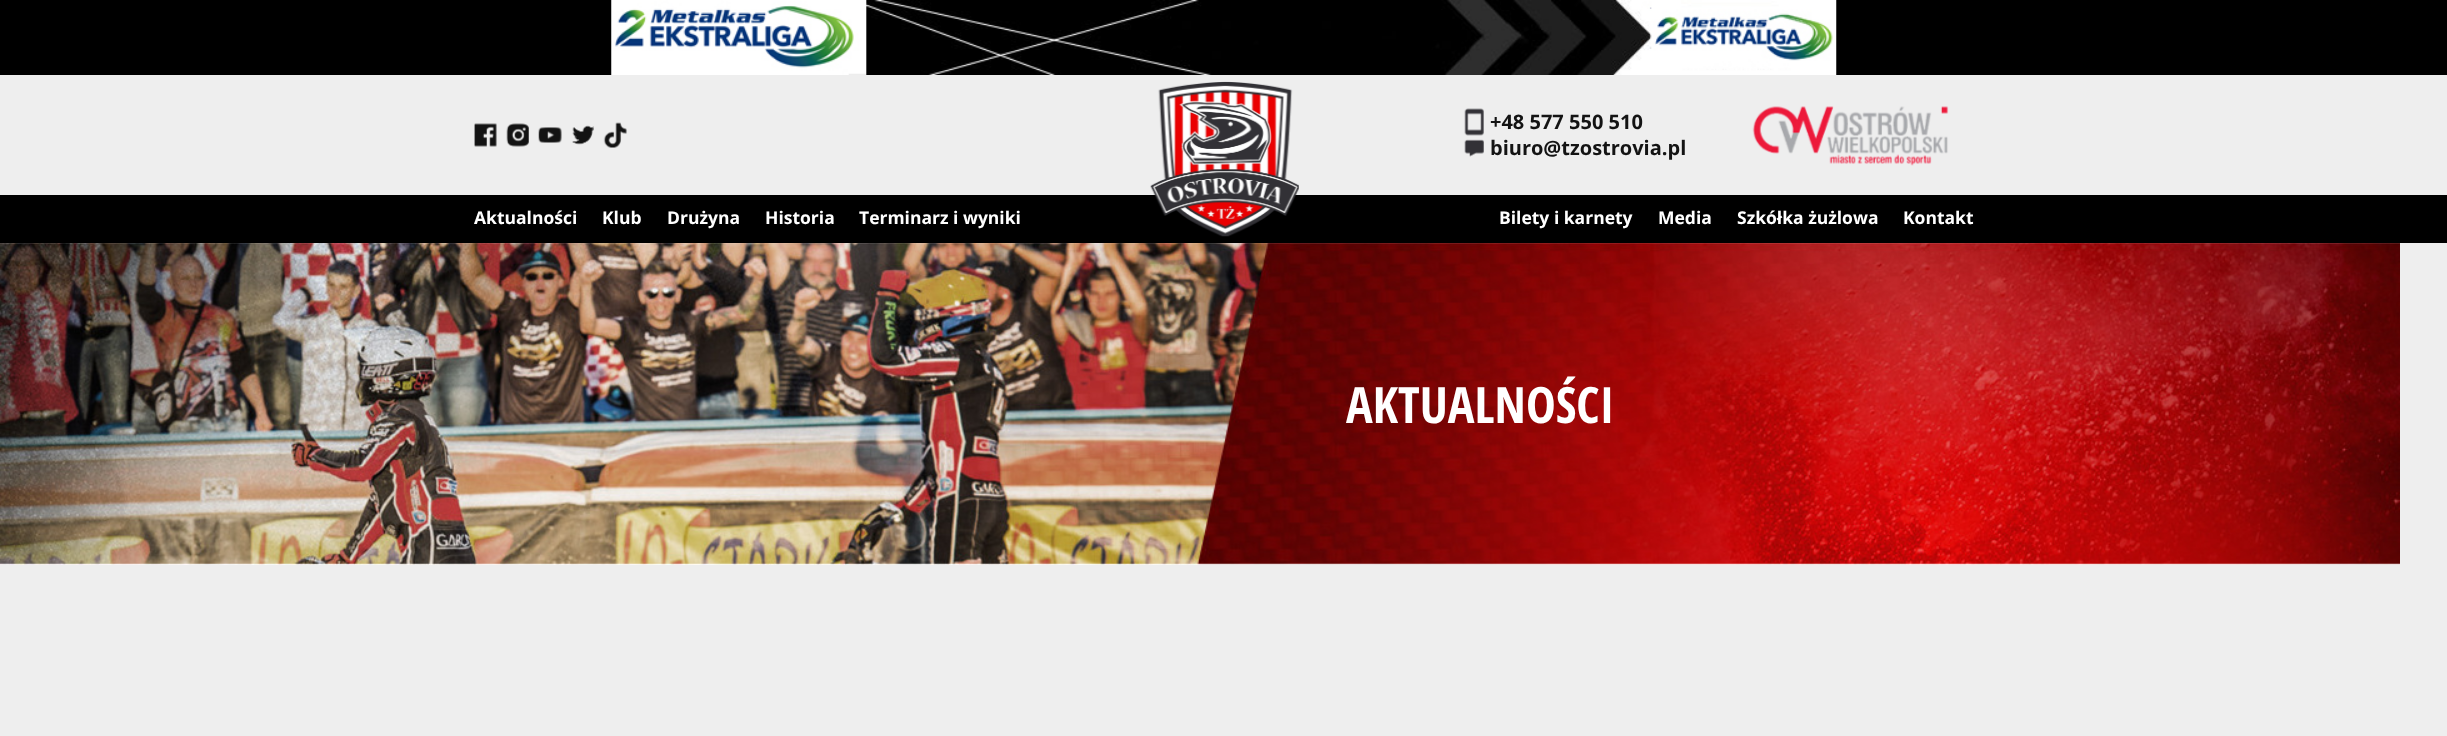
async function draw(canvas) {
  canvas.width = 2447;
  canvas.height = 736;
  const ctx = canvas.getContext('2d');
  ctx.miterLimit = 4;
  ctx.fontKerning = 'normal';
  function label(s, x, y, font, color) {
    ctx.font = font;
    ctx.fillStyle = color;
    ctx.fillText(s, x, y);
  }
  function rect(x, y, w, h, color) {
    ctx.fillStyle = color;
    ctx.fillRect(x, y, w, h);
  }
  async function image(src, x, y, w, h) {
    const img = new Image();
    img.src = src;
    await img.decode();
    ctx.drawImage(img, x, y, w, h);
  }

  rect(0, 0, 2447, 736, '#eee');
  rect(0, 0, 2447, 75, '#000');
  await image('assets/img1.png', 611, 0, 1226, 75);
  await image('assets/img2.png', 474, 123, 23, 24);
  await image('assets/img3.png', 506, 123, 23, 24);
  await image('assets/img4.png', 538, 127, 24, 16);
  await image('assets/img5.png', 572, 125, 22, 20);
  await image('assets/img6.png', 603, 122, 24, 26);
  rect(0, 195, 2447, 48, '#000');
  await image('assets/img7.png', 1150, 81, 149, 156);
  await image('assets/img8.png', 1464, 108, 20, 28);
  label('+48 577 550 510', 1490, 129, 'bold 20px Open Sans', '#131313');
  await image('assets/img9.png', 1464, 139, 20, 18);
  label('biuro@tzostrovia.pl', 1490, 155, 'bold 20px Open Sans', '#131313');
  await image('assets/img10.png', 1752, 106, 197, 60);
  label('Aktualności', 474, 224, 'bold 17.5px Open Sans', '#fff');
  label('Klub', 602, 224, 'bold 17.5px Open Sans', '#fff');
  label('Drużyna', 667, 224, 'bold 17.5px Open Sans', '#fff');
  label('Historia', 765, 224, 'bold 17.5px Open Sans', '#fff');
  label('Terminarz i wyniki', 859, 224, 'bold 17.5px Open Sans', '#fff');
  label('Bilety i karnety', 1499, 224, 'bold 17.5px Open Sans', '#fff');
  label('Media', 1658, 224, 'bold 17.5px Open Sans', '#fff');
  label('Szkółka żużlowa', 1737, 224, 'bold 17.5px Open Sans', '#fff');
  label('Kontakt', 1903, 224, 'bold 17.5px Open Sans', '#fff');
  await image('assets/img11.png', 0, 243, 2400, 322);
  label('AKTUALNOŚCI', 1346, 423, 'bold 50px Open Sans Condensed', '#fff');
}

draw(document.querySelector('canvas'));
